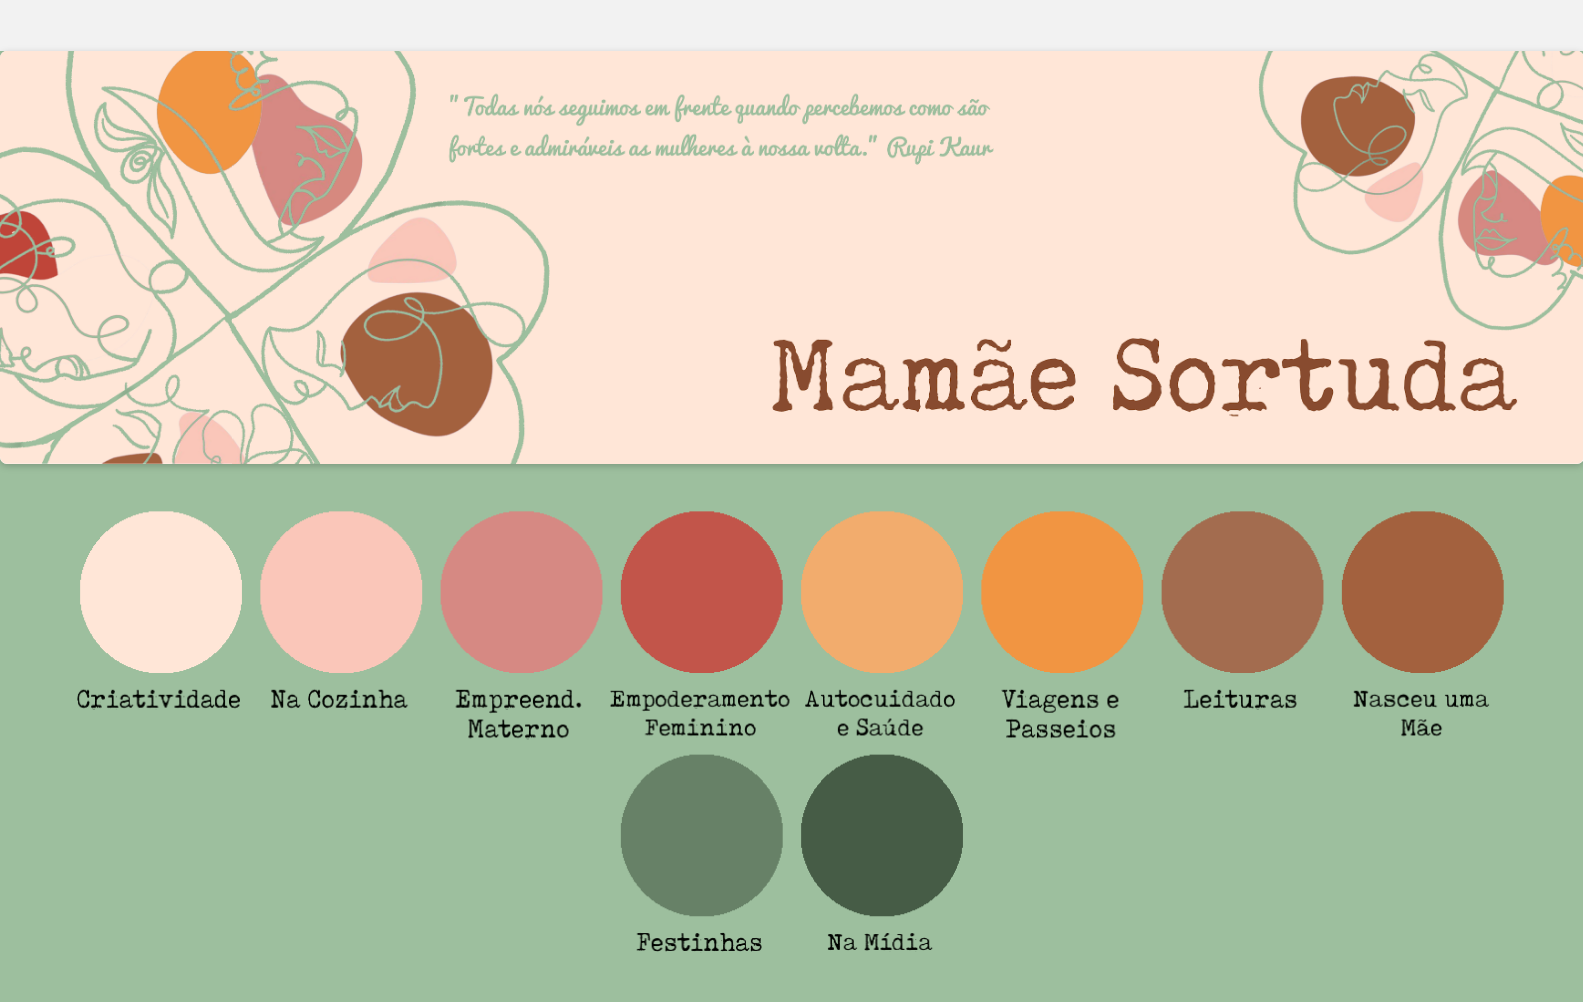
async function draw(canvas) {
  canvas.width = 1583;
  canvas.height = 1002;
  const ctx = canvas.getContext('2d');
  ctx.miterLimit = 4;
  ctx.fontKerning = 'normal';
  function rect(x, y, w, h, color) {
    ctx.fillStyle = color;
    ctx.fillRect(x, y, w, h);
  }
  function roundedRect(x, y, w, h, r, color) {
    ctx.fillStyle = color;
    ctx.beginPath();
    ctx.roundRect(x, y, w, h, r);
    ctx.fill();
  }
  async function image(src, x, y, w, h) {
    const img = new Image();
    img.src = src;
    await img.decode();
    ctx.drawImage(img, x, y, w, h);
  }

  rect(0, 0, 1583, 1002, '#9dbf9e');
  rect(0, 0, 1583, 51, '#f2f2f2');
  ctx.fillStyle = '#00000033';
  ctx.filter = 'blur(3.5px)';
  ctx.beginPath();
  ctx.roundRect(0, 53, 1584, 413, 7);
  ctx.fill();
  ctx.filter = 'none';
  roundedRect(0, 51, 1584, 413, 7, '#fff');
  await image('assets/img1.png', 0, 51, 1583, 413);
  await image('assets/img2.png', 77, 511, 165, 199);
  await image('assets/img3.png', 260, 511, 163, 199);
  await image('assets/img4.png', 440, 511, 163, 229);
  await image('assets/img5.png', 610, 511, 180, 227);
  await image('assets/img6.png', 801, 511, 162, 226);
  await image('assets/img7.png', 981, 511, 163, 229);
  await image('assets/img8.png', 1161, 511, 163, 199);
  await image('assets/img9.png', 1341, 511, 163, 226);
  await image('assets/img10.png', 620, 754, 163, 199);
  await image('assets/img11.png', 801, 754, 162, 198);
}

draw(document.querySelector('canvas'));
